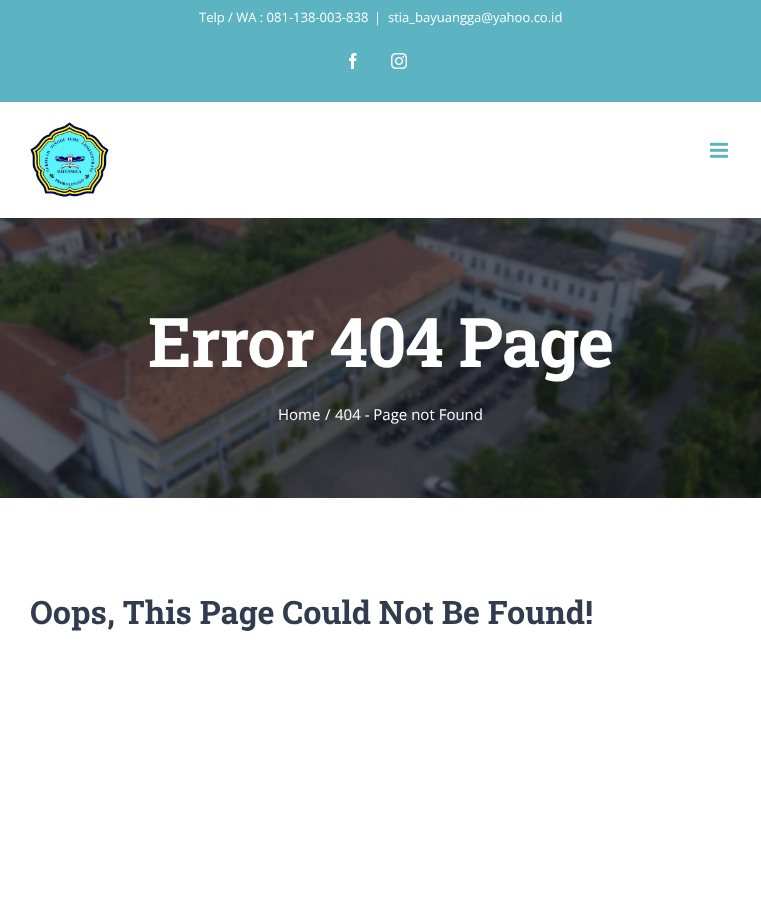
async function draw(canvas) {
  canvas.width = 761;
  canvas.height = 904;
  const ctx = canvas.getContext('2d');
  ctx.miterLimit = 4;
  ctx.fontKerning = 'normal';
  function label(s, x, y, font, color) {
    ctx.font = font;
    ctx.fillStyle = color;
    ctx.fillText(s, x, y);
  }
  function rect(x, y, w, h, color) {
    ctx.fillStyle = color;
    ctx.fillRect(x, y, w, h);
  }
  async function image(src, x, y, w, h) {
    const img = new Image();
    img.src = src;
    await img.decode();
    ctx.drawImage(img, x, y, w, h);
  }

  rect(0, 0, 761, 904, '#fff');
  rect(0, 0, 761, 102, '#5cb4c2');
  label('Telp / WA : 081-138-003-838', 199, 22, '13px Open Sans', '#fff');
  label('|', 374, 22, '13px Open Sans', '#fff');
  label('stia_bayuangga@yahoo.co.id', 388, 22, '13px Open Sans', '#fff');
  await image('assets/img1.png', 349, 53, 8, 16);
  await image('assets/img2.png', 391, 53, 16, 16);
  await image('assets/img3.png', 30, 122, 79, 75);
  await image('assets/img4.png', 710, 142, 18, 16);
  await image('assets/img5.png', 0, 218, 761, 280);
  ctx.letterSpacing = '-1px';
  label('Error 404 Page', 148, 367, 'bold 68.5px Roboto Slab', '#fff');
  ctx.letterSpacing = '0px';
  label('Home', 278, 420, '15px Open Sans', '#fff');
  label('/', 325, 420, '15px Open Sans', '#fff');
  label('404 - Page not Found', 335, 420, '15px Open Sans', '#fff');
  label('Oops, This Page Could Not Be Found!', 30, 624, 'bold 32.3px Roboto Slab', '#333c4e');
}

draw(document.querySelector('canvas'));
